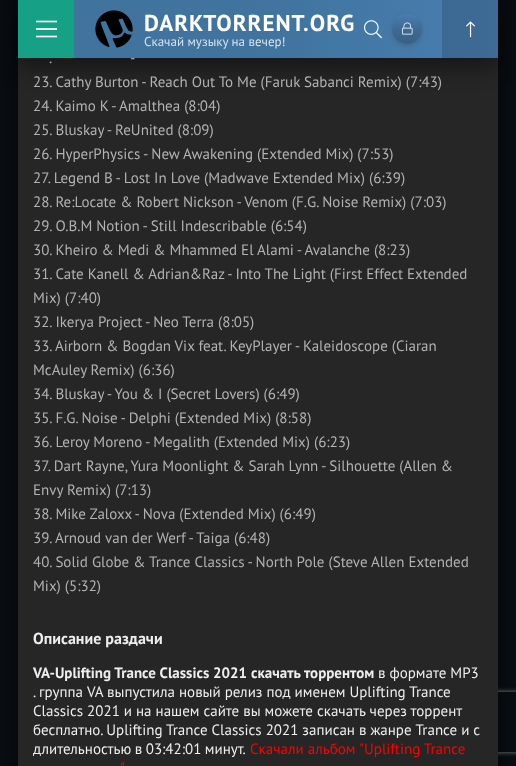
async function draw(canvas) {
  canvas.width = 516;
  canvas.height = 766;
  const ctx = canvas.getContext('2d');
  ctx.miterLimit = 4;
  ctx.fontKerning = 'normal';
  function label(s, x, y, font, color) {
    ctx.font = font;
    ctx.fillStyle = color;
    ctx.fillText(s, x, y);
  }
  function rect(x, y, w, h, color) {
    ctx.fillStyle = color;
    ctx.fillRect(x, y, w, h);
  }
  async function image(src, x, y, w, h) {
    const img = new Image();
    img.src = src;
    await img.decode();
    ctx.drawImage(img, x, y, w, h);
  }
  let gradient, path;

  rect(0, 0, 516, 766, '#0c1016');
  ctx.fillStyle = '#000000cc';
  ctx.filter = 'blur(30px)';
  ctx.beginPath();
  ctx.rect(18, -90, 480, 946);
  ctx.fill();
  ctx.filter = 'none';
  ctx.save();
  path = new Path2D('M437 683H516V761H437ZM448 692H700C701 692 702 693 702 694V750C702 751 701 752 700 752H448C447 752 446 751 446 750V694C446 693 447 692 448 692Z');
  ctx.clip(path, 'evenodd');
  ctx.fillStyle = '#808080';
  ctx.filter = 'blur(2.5px)';
  ctx.beginPath();
  ctx.roundRect(446, 692, 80, 60, 2);
  ctx.fill();
  ctx.filter = 'none';
  ctx.restore();
  rect(18, 58, 480, 708, '#262626');
  ctx.fillStyle = '#00000066';
  ctx.filter = 'blur(10px)';
  ctx.beginPath();
  ctx.rect(18, 10, 480, 58);
  ctx.fill();
  ctx.filter = 'none';
  gradient = ctx.createLinearGradient(18, 29, 498, 29);
  gradient.addColorStop(0, '#40739e');
  gradient.addColorStop(0.5, '#40739e');
  gradient.addColorStop(1, '#487eb0');
  ctx.fillStyle = gradient;
  ctx.fillRect(74, 0, 368, 58);
  gradient = ctx.createLinearGradient(18, 29, 498, 29);
  gradient.addColorStop(0, '#366286');
  gradient.addColorStop(0.5, '#366286');
  gradient.addColorStop(1, '#3d6b96');
  ctx.fillStyle = gradient;
  ctx.fillRect(442, 0, 56, 58);
  rect(18, 0, 56, 58, '#16a085');
  await image('assets/img1.png', 36, 20, 21, 18);
  await image('assets/img2.png', 95, 10, 38, 38);
  ctx.letterSpacing = '1px';
  label('DARKTORRENT.ORG', 144, 31, 'bold 23px PT Sans', '#fff');
  ctx.letterSpacing = '0px';
  label('Скачай музыку на вечер!', 144, 46, '13px PT Sans', '#d9e3ec');
  await image('assets/img3.png', 364, 20, 18, 19);
  ctx.fillStyle = '#4444444d';
  ctx.filter = 'blur(2px)';
  ctx.beginPath();
  ctx.roundRect(392, 16, 30, 30, 15);
  ctx.fill();
  ctx.filter = 'none';
  gradient = ctx.createLinearGradient(407, 44, 407, 14);
  gradient.addColorStop(0, '#40739e');
  gradient.addColorStop(0.5, '#487eb0');
  gradient.addColorStop(1, '#5794ce');
  ctx.fillStyle = gradient;
  ctx.beginPath();
  ctx.arc(407, 29, 15, 0, 2 * Math.PI);
  ctx.fill();
  ctx.fillStyle = '#00000026';
  ctx.beginPath();
  ctx.arc(407, 29, 15, 0, 2 * Math.PI);
  ctx.fill();
  await image('assets/img4.png', 402, 22, 11, 13);
  await image('assets/img5.png', 466, 21, 9, 17);
  label('-', 130, 63, '15px PT Sans', '#b2b2b2');
  label('.', 49, 63, '15px PT Sans', '#b2b2b2');
  label('23. Cathy Burton - Reach Out To Me (Faruk Sabanci Remix) (7:43)', 33, 87, '15px PT Sans', '#b2b2b2');
  label('24. Kaimo K - Amalthea (8:04)', 33, 111, '15px PT Sans', '#b2b2b2');
  label('25. Bluskay - ReUnited (8:09)', 33, 135, '15px PT Sans', '#b2b2b2');
  label('26. HyperPhysics - New Awakening (Extended Mix) (7:53)', 33, 159, '15px PT Sans', '#b2b2b2');
  label('27. Legend B - Lost In Love (Madwave Extended Mix) (6:39)', 33, 183, '15px PT Sans', '#b2b2b2');
  label('28. Re:Locate & Robert Nickson - Venom (F.G. Noise Remix) (7:03)', 33, 207, '15px PT Sans', '#b2b2b2');
  label('29. O.B.M Notion - Still Indescribable (6:54)', 33, 231, '15px PT Sans', '#b2b2b2');
  label('30. Kheiro & Medi & Mhammed El Alami - Avalanche (8:23)', 33, 255, '15px PT Sans', '#b2b2b2');
  label('31. Cate Kanell & Adrian&Raz - Into The Light (First Effect Extended', 33, 279, '15px PT Sans', '#b2b2b2');
  label('Mix) (7:40)', 33, 303, '15px PT Sans', '#b2b2b2');
  label('32. Ikerya Project - Neo Terra (8:05)', 33, 327, '15px PT Sans', '#b2b2b2');
  label('33. Airborn & Bogdan Vix feat. KeyPlayer - Kaleidoscope (Ciaran', 33, 351, '15px PT Sans', '#b2b2b2');
  label('McAuley Remix) (6:36)', 33, 375, '15px PT Sans', '#b2b2b2');
  label('34. Bluskay - You & I (Secret Lovers) (6:49)', 33, 399, '15px PT Sans', '#b2b2b2');
  label('35. F.G. Noise - Delphi (Extended Mix) (8:58)', 33, 423, '15px PT Sans', '#b2b2b2');
  label('36. Leroy Moreno - Megalith (Extended Mix) (6:23)', 33, 447, '15px PT Sans', '#b2b2b2');
  label('37. Dart Rayne, Yura Moonlight & Sarah Lynn - Silhouette (Allen &', 33, 471, '15px PT Sans', '#b2b2b2');
  label('Envy Remix) (7:13)', 33, 495, '15px PT Sans', '#b2b2b2');
  label('38. Mike Zaloxx - Nova (Extended Mix) (6:49)', 33, 519, '15px PT Sans', '#b2b2b2');
  label('39. Arnoud van der Werf - Taiga (6:48)', 33, 543, '15px PT Sans', '#b2b2b2');
  label('40. Solid Globe & Trance Classics - North Pole (Steve Allen Extended', 33, 567, '15px PT Sans', '#b2b2b2');
  label('Mix) (5:32)', 33, 591, '15px PT Sans', '#b2b2b2');
  label('Описание раздачи', 33, 644, 'bold 16px PT Sans', '#eee');
  label('VA-Uplifting Trance Classics 2021 скачать торрентом', 33, 678, 'bold 15px PT Sans', '#eee');
  label('в формате MP3', 378, 678, '15px PT Sans', '#eee');
  label('. группа VA выпустила новый релиз под именем Uplifting Trance', 33, 697, '15px PT Sans', '#eee');
  label('Classics 2021 и на нашем сайте вы можете скачать через торрент', 33, 716, '15px PT Sans', '#eee');
  label('бесплатно. Uplifting Trance Classics 2021 записан в жанре Trance и с', 33, 735, '15px PT Sans', '#eee');
  ctx.wordSpacing = '-0.5px';
  label('длительностью в 03:42:01 минут.', 33, 754, '15px PT Sans', '#eee');
  ctx.wordSpacing = '0px';
  label('Скачали альбом', 250, 754, '15px PT Sans', '#f00');
  label('"Uplifting Trance', 359, 754, '15px PT Sans', '#f00');
  label('"', 120, 773, '15px PT Sans', '#f00');
}

draw(document.querySelector('canvas'));
